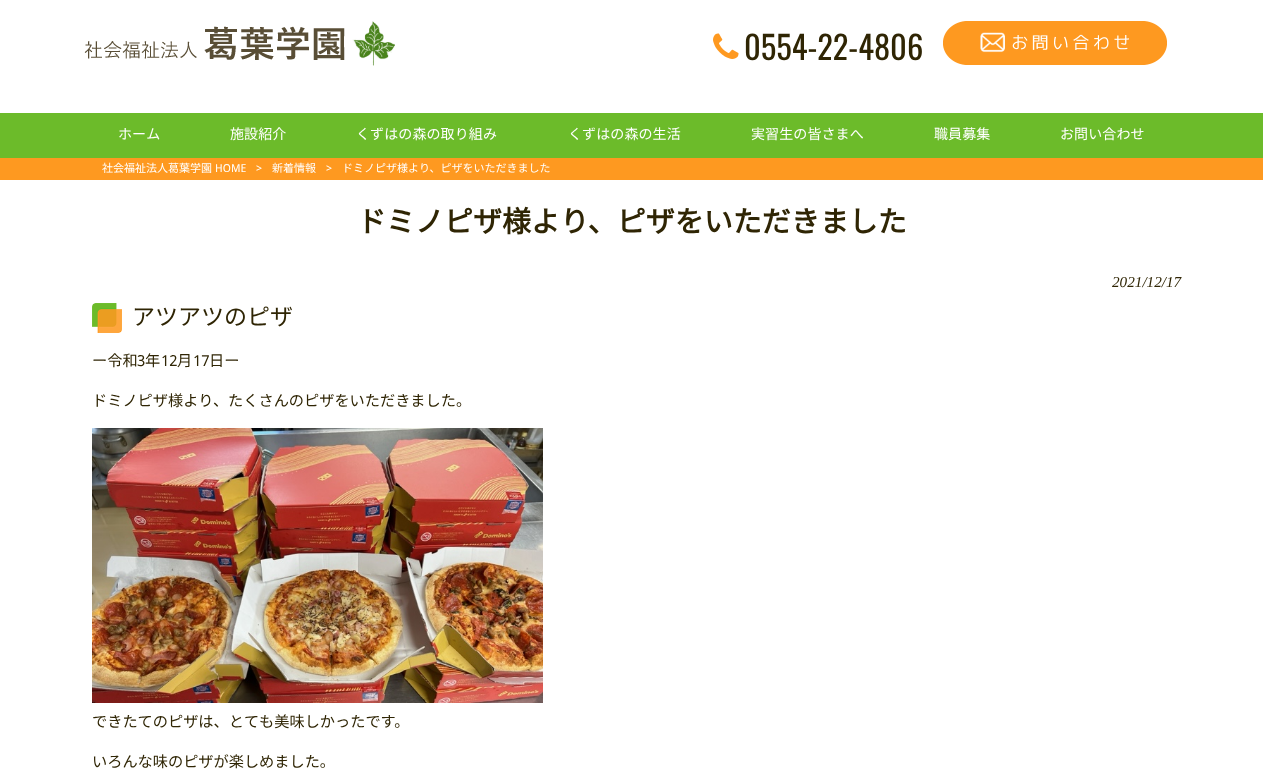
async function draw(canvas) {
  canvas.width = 1263;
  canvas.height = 783;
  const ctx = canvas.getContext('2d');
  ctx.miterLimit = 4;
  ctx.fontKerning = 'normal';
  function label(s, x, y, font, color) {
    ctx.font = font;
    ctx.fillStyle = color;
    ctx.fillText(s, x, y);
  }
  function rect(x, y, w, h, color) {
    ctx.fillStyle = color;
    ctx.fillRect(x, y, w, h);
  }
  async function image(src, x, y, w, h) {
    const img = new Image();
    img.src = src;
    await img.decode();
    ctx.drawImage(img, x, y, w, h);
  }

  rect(0, 0, 1263, 783, '#fff');
  await image('assets/img1.png', 84, 21, 311, 45);
  await image('assets/img2.png', 713, 33, 26, 26);
  label('0554-22-4806', 744, 60, '32.5px Oswald', '#2f2504');
  await image('assets/img3.png', 943, 21, 224, 44);
  rect(0, 113, 1263, 45, '#6cbb2a');
  ctx.letterSpacing = '0.1px';
  label('ホーム', 118, 139, '100 14px Noto Sans JP', '#fff');
  label('施設紹介', 230, 139, '100 14px Noto Sans JP', '#fff');
  label('くずはの森の取り組み', 356, 139, '100 14px Noto Sans JP', '#fff');
  label('くずはの森の生活', 568, 139, '100 14px Noto Sans JP', '#fff');
  label('実習生の皆さまへ', 751, 139, '100 14px Noto Sans JP', '#fff');
  label('職員募集', 934, 139, '100 14px Noto Sans JP', '#fff');
  label('お問い合わせ', 1060, 139, '100 14px Noto Sans JP', '#fff');
  rect(0, 158, 1263, 22, '#fe9920');
  ctx.letterSpacing = '0px';
  label('社会福祉法人葛葉学園', 102, 172, '100 11px Noto Sans JP', '#fff');
  label('HOME', 215, 172, '11px Droid Sans', '#fff');
  label('>', 256, 172, '11px Droid Sans', '#fff');
  label('新着情報', 272, 172, '100 11px Noto Sans JP', '#fff');
  label('>', 326, 172, '11px Droid Sans', '#fff');
  label('ドミノピザ様より、ピザをいただきました', 342, 172, '100 11px Noto Sans JP', '#fff');
  label('ドミノピザ様より、ピザをいただきました', 357, 232, 'bold 29px Noto Sans JP', '#2f2504');
  label('2021/12/17', 1112, 287, 'italic 15.2px Liberation Serif', '#2f2504');
  await image('assets/img4.png', 92, 303, 30, 30);
  label('アツアツのピザ', 132, 325, '100 23px Noto Sans JP', '#2f2504');
  label('ー令和', 92, 366, '100 15.2px Noto Sans JP', '#2f2504');
  label('3', 137, 366, '15.2px Droid Sans', '#2f2504');
  label('年', 145, 366, '100 15.2px Noto Sans JP', '#2f2504');
  label('12', 161, 366, '15.2px Droid Sans', '#2f2504');
  label('月', 177, 366, '100 15.2px Noto Sans JP', '#2f2504');
  label('17', 193, 366, '15.2px Droid Sans', '#2f2504');
  label('日ー', 209, 366, '100 15.2px Noto Sans JP', '#2f2504');
  label('ドミノピザ様より、たくさんのピザをいただきました。', 92, 406, '100 15.2px Noto Sans JP', '#2f2504');
  await image('assets/img5.png', 92, 428, 451, 275);
  label('できたてのピザは、とても美味しかったです。', 92, 727, '100 15.2px Noto Sans JP', '#2f2504');
  label('いろんな味のピザが楽しめました。', 92, 767, '100 15.2px Noto Sans JP', '#2f2504');
}

draw(document.querySelector('canvas'));
